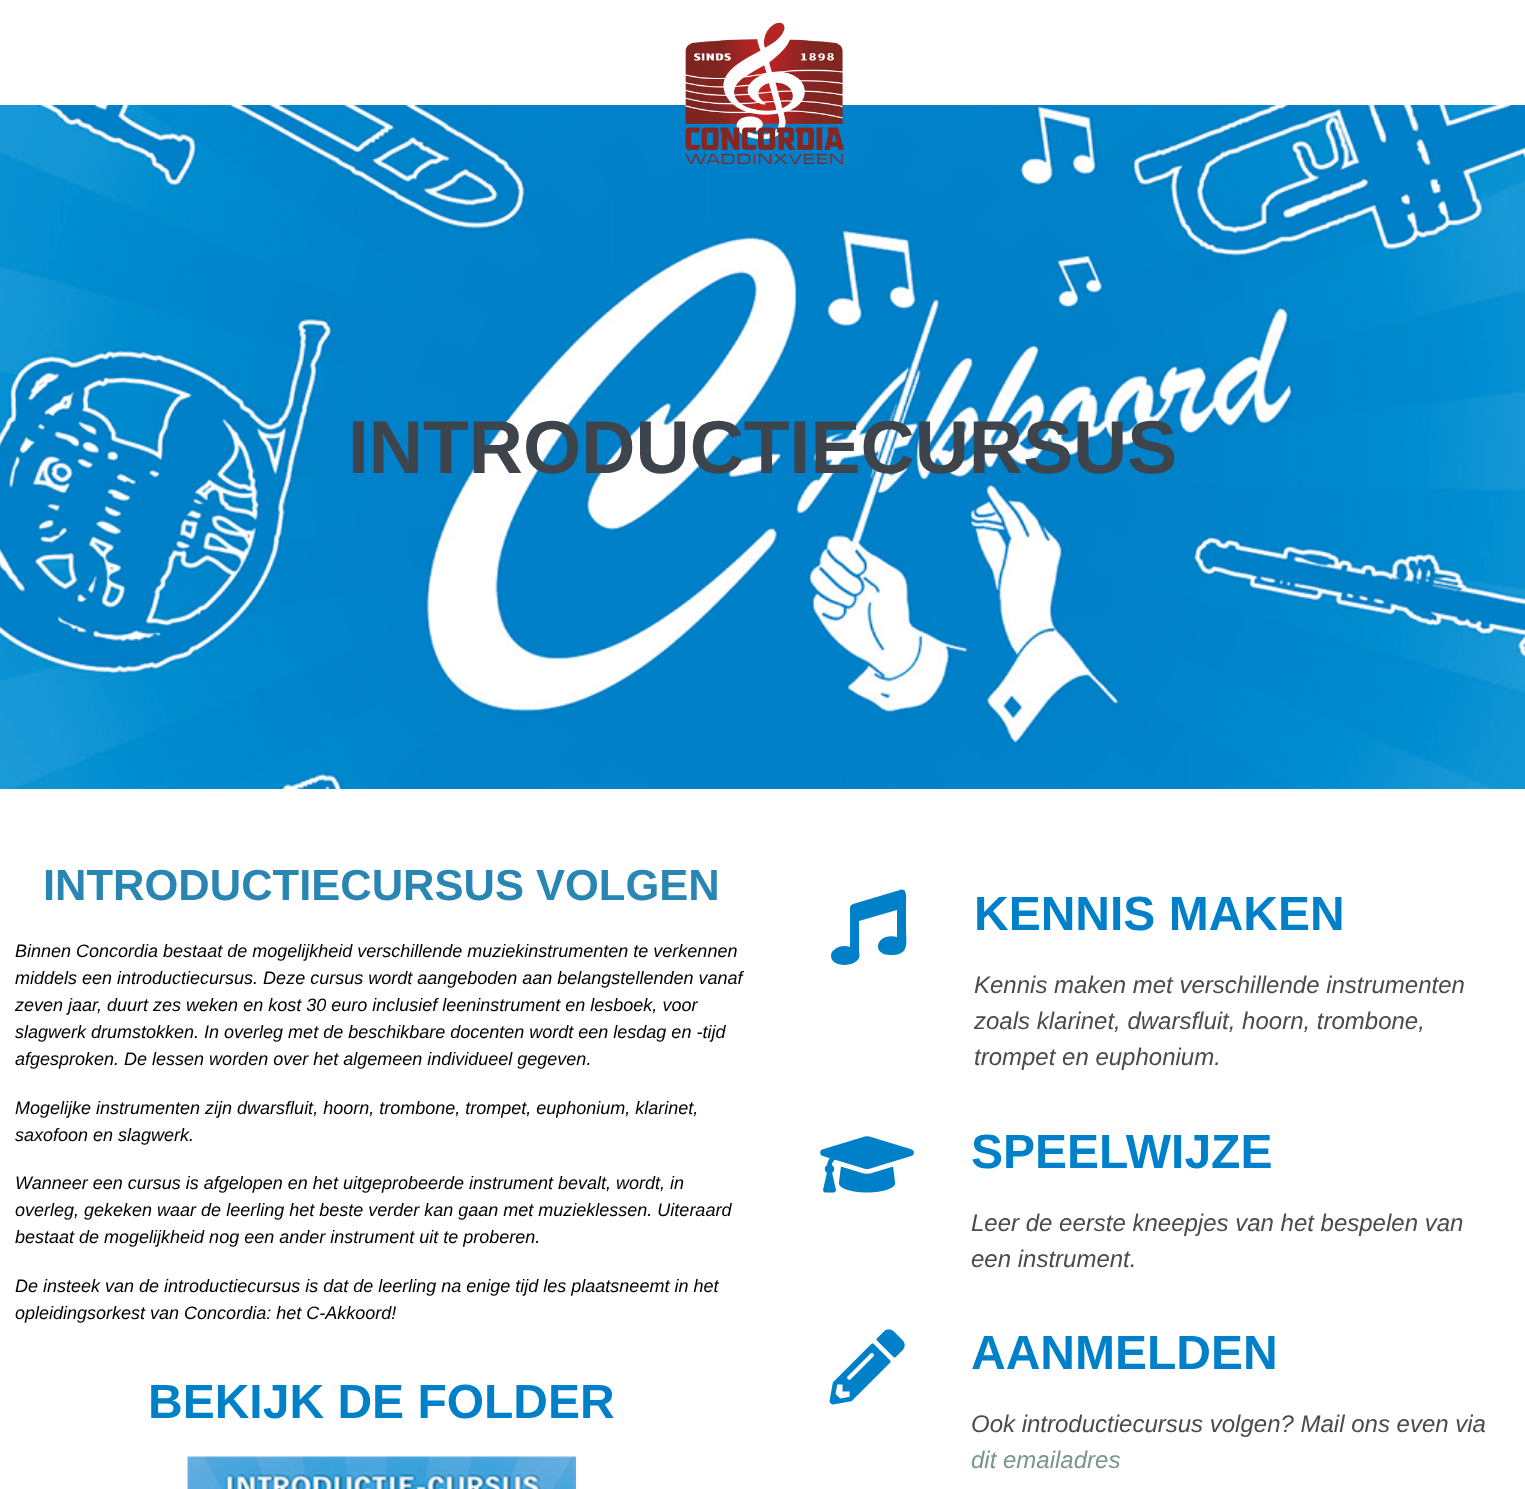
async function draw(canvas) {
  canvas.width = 1525;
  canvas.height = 1489;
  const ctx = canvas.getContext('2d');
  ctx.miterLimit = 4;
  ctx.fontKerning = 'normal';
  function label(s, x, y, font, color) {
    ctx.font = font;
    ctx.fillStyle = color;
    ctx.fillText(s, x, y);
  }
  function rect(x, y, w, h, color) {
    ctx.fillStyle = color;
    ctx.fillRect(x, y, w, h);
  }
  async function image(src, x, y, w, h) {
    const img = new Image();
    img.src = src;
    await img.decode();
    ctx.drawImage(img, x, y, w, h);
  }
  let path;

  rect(0, 0, 1525, 1489, '#fff');
  await image('assets/img2.png', 0, 105, 1525, 684);
  await image('assets/img1.png', 685, 22, 159, 142);
  label('INTRODUCTIECURSUS', 348, 473, 'bold 75px Liberation Sans', '#3d444c');
  label('INTRODUCTIECURSUS VOLGEN', 43, 900, 'bold 43.5px Liberation Sans', '#2986b2');
  label('Binnen Concordia bestaat de mogelijkheid verschillende muziekinstrumenten te verkennen', 15, 957, 'italic 18px Liberation Sans', '#000');
  label('middels een introductiecursus. Deze cursus wordt aangeboden aan belangstellenden vanaf', 15, 984, 'italic 18px Liberation Sans', '#000');
  label('zeven jaar, duurt zes weken en kost 30 euro inclusief leeninstrument en lesboek, voor', 15, 1011, 'italic 18px Liberation Sans', '#000');
  label('slagwerk drumstokken. In overleg met de beschikbare docenten wordt een lesdag en -tijd', 15, 1038, 'italic 18px Liberation Sans', '#000');
  label('afgesproken. De lessen worden over het algemeen individueel gegeven.', 15, 1065, 'italic 18px Liberation Sans', '#000');
  label('Mogelijke instrumenten zijn dwarsfluit, hoorn, trombone, trompet, euphonium, klarinet,', 15, 1114, 'italic 18px Liberation Sans', '#000');
  label('saxofoon en slagwerk.', 15, 1141, 'italic 18px Liberation Sans', '#000');
  label('Wanneer een cursus is afgelopen en het uitgeprobeerde instrument bevalt, wordt, in', 15, 1189, 'italic 18px Liberation Sans', '#000');
  label('overleg, gekeken waar de leerling het beste verder kan gaan met muzieklessen. Uiteraard', 15, 1216, 'italic 18px Liberation Sans', '#000');
  label('bestaat de mogelijkheid nog een ander instrument uit te proberen.', 15, 1243, 'italic 18px Liberation Sans', '#000');
  label('De insteek van de introductiecursus is dat de leerling na enige tijd les plaatsneemt in het', 15, 1292, 'italic 18px Liberation Sans', '#000');
  label('opleidingsorkest van Concordia: het C-Akkoord!', 15, 1319, 'italic 18px Liberation Sans', '#000');
  label('BEKIJK DE FOLDER', 148, 1418, 'bold 48px Liberation Sans', '#0080c8');
  await image('assets/img3.png', 187, 1456, 389, 33);
  path = new Path2D('M900 890C908 887 906 901 906 903V929C906 942 910 954 893 955C870 957 875 932 897 937V910L859 921V950C859 952 860 956 859 958C854 968 831 967 831 956C831 953 832 951 834 950C838 946 845 945 850 947V908C850 906 851 905 853 904Z');
  ctx.fill(path);
  label('KENNIS MAKEN', 974, 930, 'bold 48px Liberation Sans', '#0080c8');
  label('Kennis maken met verschillende instrumenten', 974, 993, 'italic 24px Liberation Sans', '#4b4b4b');
  label('zoals klarinet, dwarsfluit, hoorn, trombone,', 974, 1029, 'italic 24px Liberation Sans', '#4b4b4b');
  label('trompet en euphonium.', 974, 1065, 'italic 24px Liberation Sans', '#4b4b4b');
  await image('assets/img4.png', 820, 1136, 94, 57);
  label('SPEELWIJZE', 971, 1168, 'bold 48px Liberation Sans', '#0080c8');
  label('Leer de eerste kneepjes van het bespelen van', 971, 1231, 'italic 24px Liberation Sans', '#4b4b4b');
  label('een instrument.', 971, 1267, 'italic 24px Liberation Sans', '#4b4b4b');
  await image('assets/img5.png', 829, 1329, 76, 76);
  label('AANMELDEN', 971, 1369, 'bold 48px Liberation Sans', '#0080c8');
  label('Ook introductiecursus volgen? Mail ons even via', 971, 1432, 'italic 24px Liberation Sans', '#4b4b4b');
  label('dit emailadres', 971, 1468, 'italic 24px Liberation Sans', '#77978a');
}

draw(document.querySelector('canvas'));
